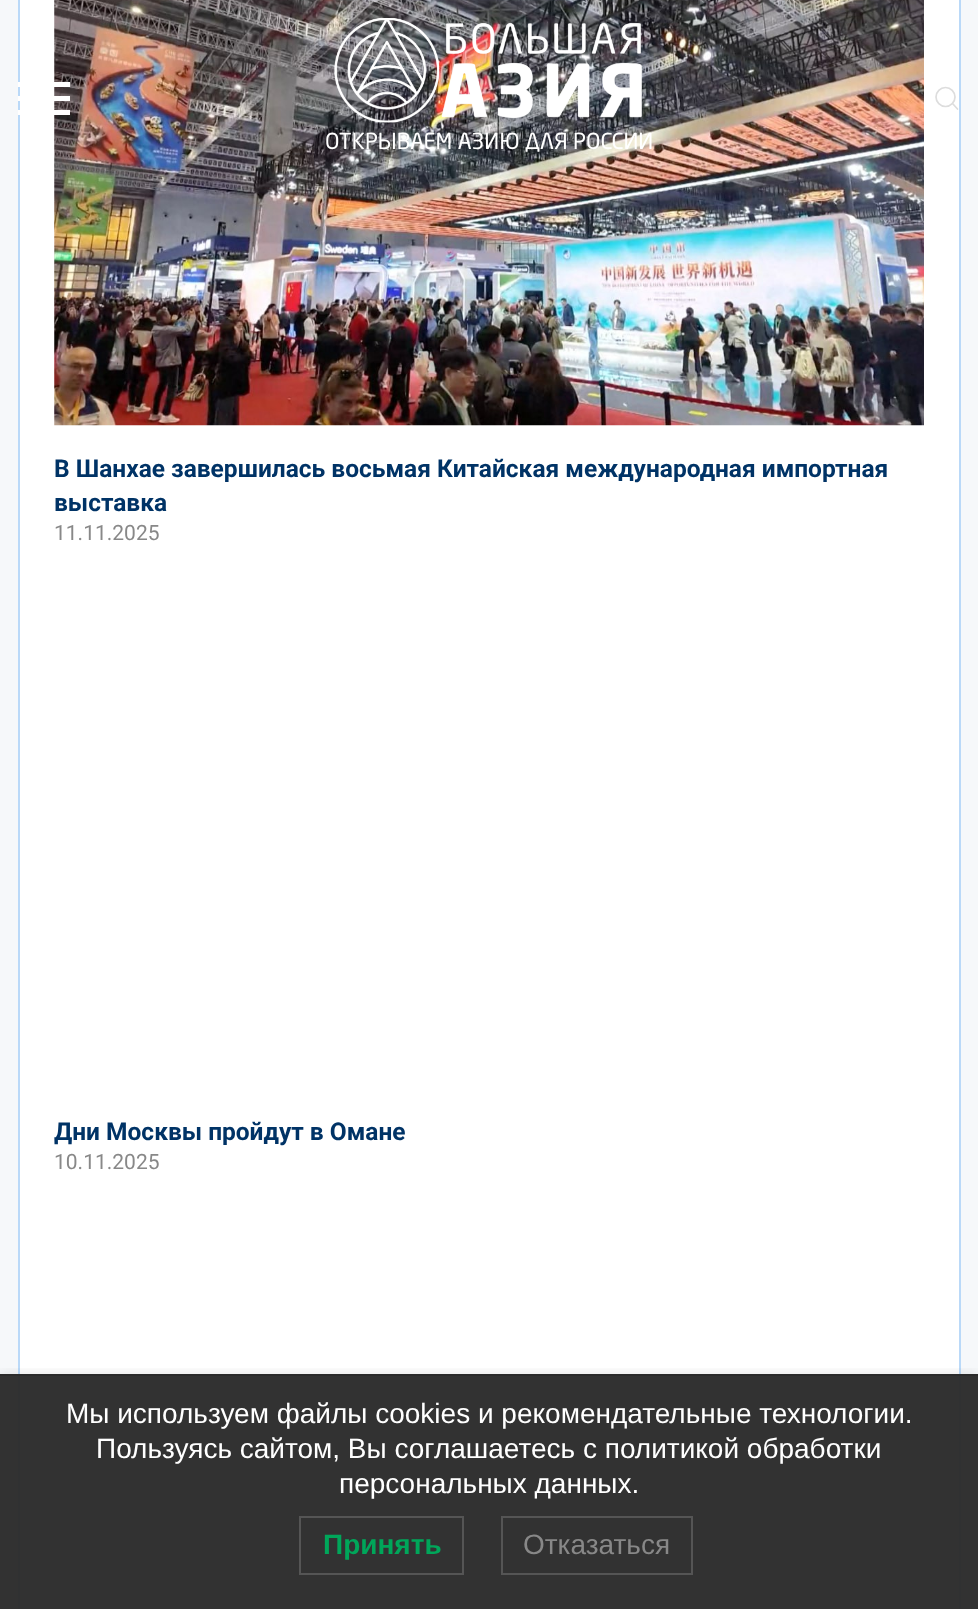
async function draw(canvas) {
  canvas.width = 978;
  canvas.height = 1609;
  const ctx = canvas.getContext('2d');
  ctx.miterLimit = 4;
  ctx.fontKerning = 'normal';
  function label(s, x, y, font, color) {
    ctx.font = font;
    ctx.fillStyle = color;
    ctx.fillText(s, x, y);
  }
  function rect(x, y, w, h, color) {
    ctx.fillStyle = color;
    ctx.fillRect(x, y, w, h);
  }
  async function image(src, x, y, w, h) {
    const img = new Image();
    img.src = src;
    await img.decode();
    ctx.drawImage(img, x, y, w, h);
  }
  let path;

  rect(0, 0, 978, 1609, '#f6f8fa');
  ctx.fillStyle = '#fff';
  ctx.beginPath();
  ctx.rect(19, -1, 941, 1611);
  ctx.fill();
  ctx.strokeStyle = '#bad9f8';
  ctx.lineWidth = 2;
  ctx.stroke();
  await image('assets/img2.png', 54, 0, 870, 426);
  rect(18, 82, 52, 5, '#fff');
  rect(18, 96, 52, 5, '#fff');
  rect(18, 110, 52, 5, '#fff');
  path = new Path2D('M953 104L957.5 109');
  ctx.strokeStyle = '#ddd';
  ctx.lineWidth = 1.7;
  ctx.lineCap = 'round';
  ctx.stroke(path);
  ctx.beginPath();
  ctx.arc(945.5, 97, 9.5, 0, 2 * Math.PI);
  ctx.stroke();
  await image('assets/img1.png', 334, 18, 308, 105);
  label('ОТКРЫВАЕМ АЗИЮ ДЛЯ РОССИИ', 325, 149, '21.9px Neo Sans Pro', '#fff');
  label('В Шанхае завершилась восьмая Китайская международная импортная', 54, 477, 'bold 24.5px Roboto', '#036');
  label('выставка', 54, 511, 'bold 24.5px Roboto', '#036');
  label('11.11.2025', 54, 540, '21px Roboto', '#888');
  label('Дни Москвы пройдут в Омане', 54, 1140, 'bold 24.5px Roboto', '#036');
  label('10.11.2025', 54, 1169, '21px Roboto', '#888');
  ctx.save();
  ctx.beginPath();
  ctx.rect(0, 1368, 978, 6);
  ctx.clip();
  ctx.fillStyle = '#0000001a';
  ctx.filter = 'blur(7px)';
  ctx.beginPath();
  ctx.rect(0, 1374, 978, 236);
  ctx.fill();
  ctx.filter = 'none';
  ctx.restore();
  rect(0, 1376, 978, 233, '#2b2b2bf7');
  rect(0, 1374, 978, 2, '#2b2b2b');
  label('Мы используем файлы cookies и рекомендательные технологии.', 66, 1423, '28px Liberation Sans', '#fff');
  label('Пользуясь сайтом, Вы соглашаетесь с политикой обработки', 96, 1458, '28px Liberation Sans', '#fff');
  label('персональных данных.', 339, 1493, '28px Liberation Sans', '#fff');
  ctx.strokeStyle = '#555';
  ctx.lineWidth = 2;
  ctx.strokeRect(300, 1517, 163, 57);
  label('Принять', 323, 1554, 'bold 28px Liberation Sans', '#00a65a');
  ctx.strokeRect(502, 1517, 190, 57);
  label('Отказаться', 523, 1554, '28px Liberation Sans', '#888');
}

draw(document.querySelector('canvas'));
